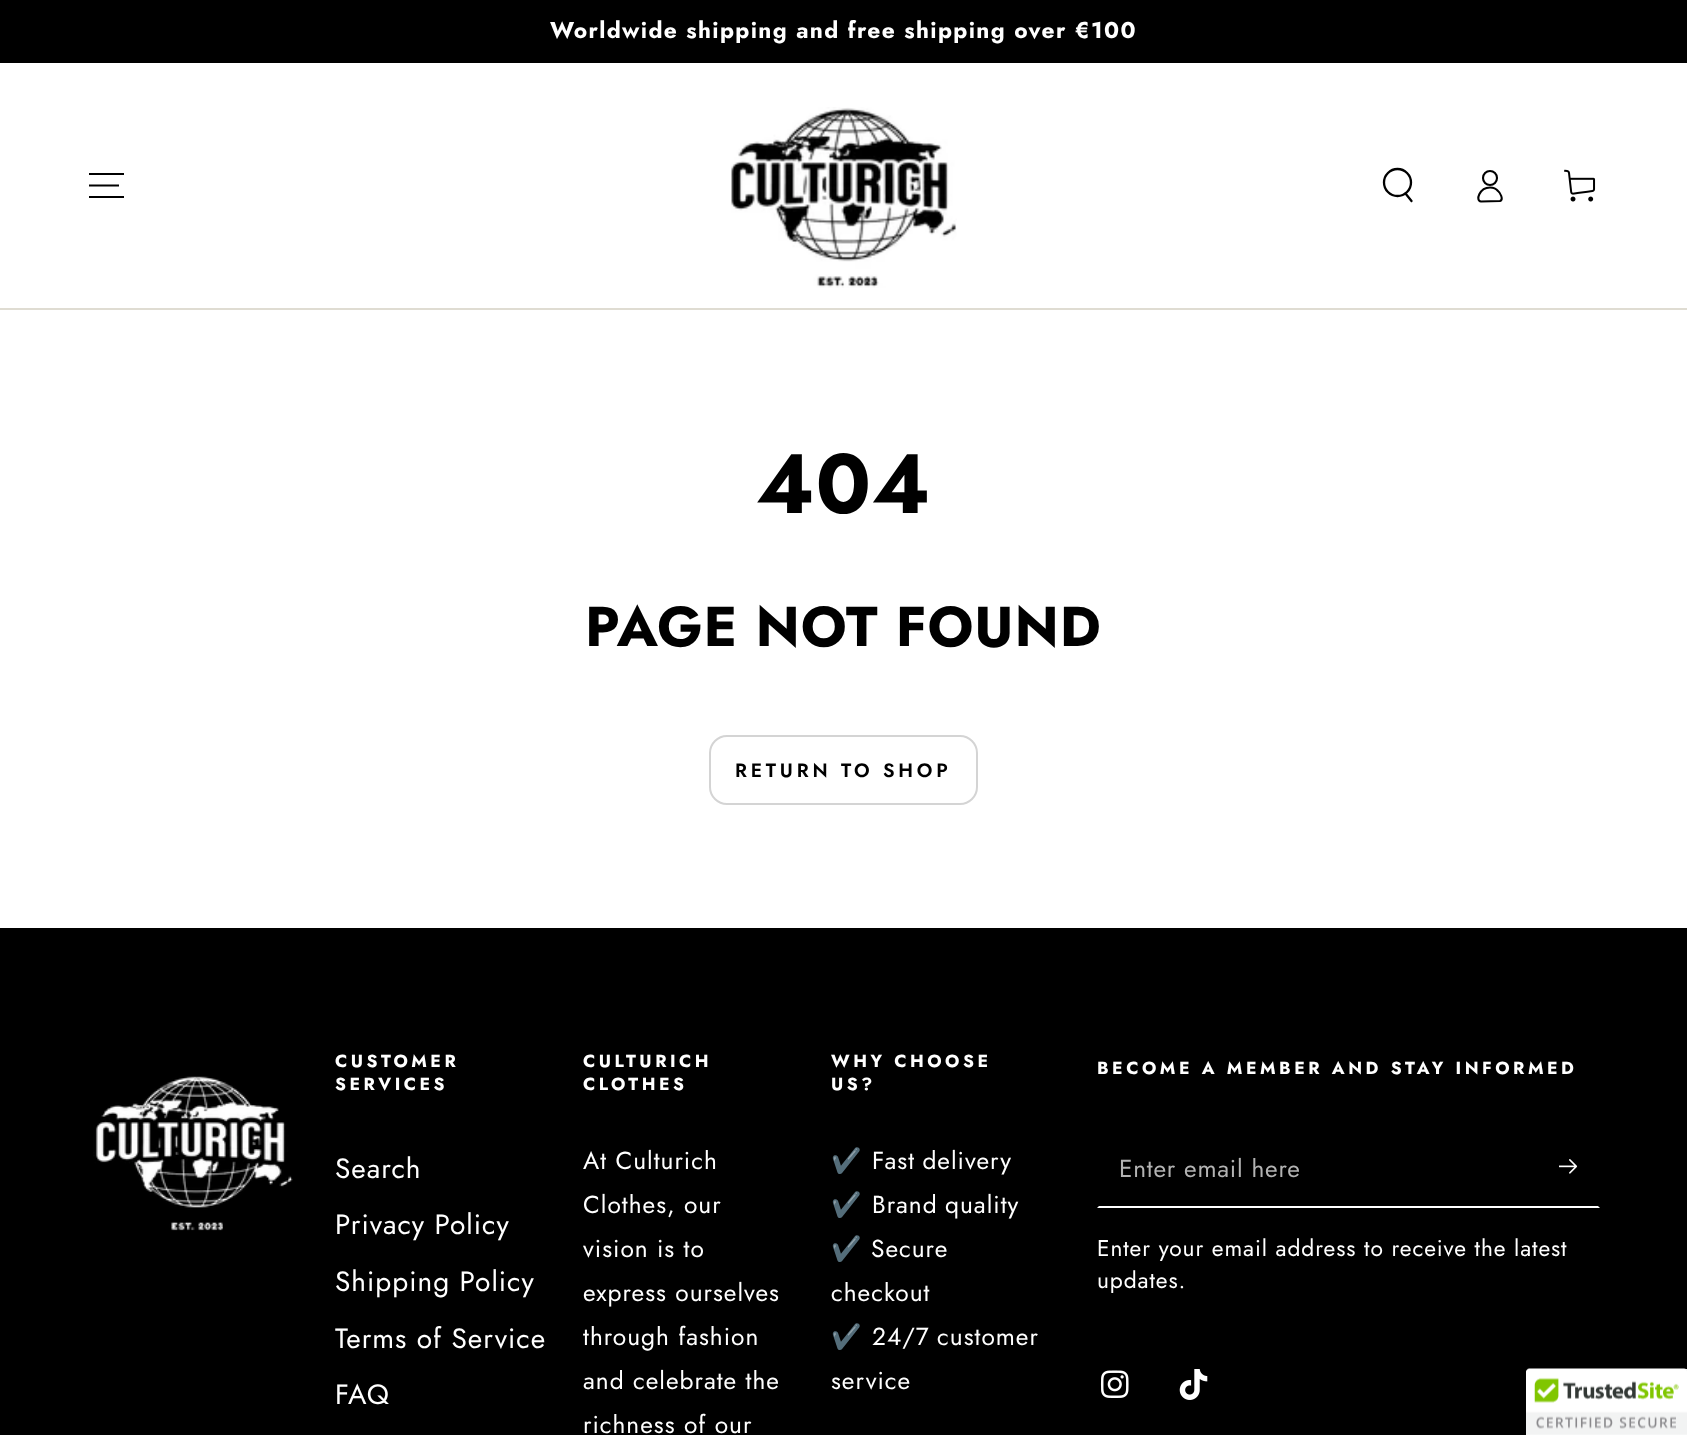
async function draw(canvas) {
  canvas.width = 1687;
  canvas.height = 1435;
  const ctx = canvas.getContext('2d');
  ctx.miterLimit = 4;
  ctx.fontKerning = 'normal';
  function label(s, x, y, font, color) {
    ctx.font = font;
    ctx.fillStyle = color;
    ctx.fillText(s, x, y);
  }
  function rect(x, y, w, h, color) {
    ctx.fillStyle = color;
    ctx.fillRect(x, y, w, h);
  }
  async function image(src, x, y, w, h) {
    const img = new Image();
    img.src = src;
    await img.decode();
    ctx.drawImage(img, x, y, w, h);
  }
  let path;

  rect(0, 0, 1687, 1435, '#fff');
  rect(0, 0, 1687, 63, '#000');
  ctx.letterSpacing = '1.35px';
  label('Worldwide shipping and free shipping over €100', 550, 38, 'bold 22.75px Jost', '#fff');
  rect(0, 308, 1687, 2, '#dfdcd2');
  path = new Path2D('M89 197H124M89 185.5H119M89 174H124');
  ctx.strokeStyle = '#000';
  ctx.lineWidth = 2;
  ctx.stroke(path);
  await image('assets/img1.png', 731, 107, 226, 181);
  ctx.beginPath();
  ctx.arc(1397.5, 182.5, 13.5, 0, 2 * Math.PI);
  ctx.lineWidth = 2.3;
  ctx.stroke();
  path = new Path2D('M1405.5 193.5L1411.5 201');
  ctx.lineCap = 'round';
  ctx.stroke(path);
  path = new Path2D('M1490 187.5C1479.5 187.5 1475 201 1481 201.5L1500 201C1504 199.5 1500 192.5 1498 191C1496 188.5 1493 187.5 1490 187.5Z');
  ctx.lineWidth = 2.1;
  ctx.lineCap = 'butt';
  ctx.stroke(path);
  ctx.beginPath();
  ctx.arc(1490, 178, 7, 0, 2 * Math.PI);
  ctx.stroke();
  await image('assets/img2.png', 1564, 169, 32, 33);
  ctx.letterSpacing = '0.8px';
  label('404', 756, 513, 'bold 84px Jost', '#000');
  label('PAGE NOT FOUND', 585, 646, 'bold 56px Jost', '#000');
  ctx.beginPath();
  ctx.roundRect(710, 736, 267, 68, 17);
  ctx.strokeStyle = '#d4d4d4';
  ctx.lineWidth = 2;
  ctx.stroke();
  ctx.letterSpacing = '3.8px';
  label('RETURN TO SHOP', 735, 777, '600 19.25px Jost', '#000');
  rect(0, 928, 1687, 507, '#000');
  await image('assets/img3.png', 93, 1076, 200, 155);
  ctx.letterSpacing = '3.5px';
  label('CUSTOMER', 335, 1067, 'bold 17.5px Jost', '#fff');
  label('SERVICES', 335, 1090, 'bold 17.5px Jost', '#fff');
  ctx.letterSpacing = '1px';
  label('Search', 335, 1178, '28px Jost', '#fff');
  label('Privacy Policy', 335, 1234, '28px Jost', '#fff');
  label('Shipping Policy', 335, 1291, '28px Jost', '#fff');
  label('Terms of Service', 335, 1348, '28px Jost', '#fff');
  label('FAQ', 335, 1404, '28px Jost', '#fff');
  ctx.letterSpacing = '3.5px';
  label('CULTURICH', 583, 1067, 'bold 17.5px Jost', '#fff');
  label('CLOTHES', 583, 1090, 'bold 17.5px Jost', '#fff');
  ctx.letterSpacing = '1px';
  label('At Culturich', 583, 1169, '24.5px Jost', '#fff');
  label('Clothes, our', 583, 1213, '24.5px Jost', '#fff');
  label('vision is to', 583, 1257, '24.5px Jost', '#fff');
  label('express ourselves', 583, 1301, '24.5px Jost', '#fff');
  label('through fashion', 583, 1345, '24.5px Jost', '#fff');
  label('and celebrate the', 583, 1389, '24.5px Jost', '#fff');
  label('richness of our', 583, 1433, '24.5px Jost', '#fff');
  ctx.letterSpacing = '3.5px';
  label('WHY CHOOSE', 831, 1067, 'bold 17.5px Jost', '#fff');
  label('US?', 831, 1090, 'bold 17.5px Jost', '#fff');
  ctx.letterSpacing = '1px';
  label('✔️', 831, 1169, '24.5px Noto Color Emoji', '#fff');
  ctx.wordSpacing = '-1px';
  label('Fast delivery', 872, 1169, '24.5px Jost', '#fff');
  ctx.wordSpacing = '0px';
  label('✔️', 831, 1213, '24.5px Noto Color Emoji', '#fff');
  ctx.wordSpacing = '-1px';
  label('Brand quality', 872, 1213, '24.5px Jost', '#fff');
  ctx.wordSpacing = '0px';
  label('✔️', 831, 1257, '24.5px Noto Color Emoji', '#fff');
  label('Secure', 871, 1257, '24.5px Jost', '#fff');
  label('checkout', 831, 1301, '24.5px Jost', '#fff');
  label('✔️', 831, 1345, '24.5px Noto Color Emoji', '#fff');
  ctx.wordSpacing = '-1px';
  label('24/7 customer', 872, 1345, '24.5px Jost', '#fff');
  ctx.wordSpacing = '0px';
  label('service', 831, 1389, '24.5px Jost', '#fff');
  ctx.letterSpacing = '3.5px';
  label('BECOME A MEMBER AND STAY INFORMED', 1097, 1074, 'bold 17.5px Jost', '#fff');
  path = new Path2D('M1600 1208H1097L1099 1206H1598Z');
  ctx.fill(path);
  ctx.letterSpacing = '0.75px';
  label('Enter email here', 1119, 1177, '24.5px Jost', '#b3b3b3');
  await image('assets/img4.png', 1559, 1159, 19, 15);
  ctx.letterSpacing = '0.9px';
  label('Enter your email address to receive the latest', 1097, 1256, '22.75px Jost', '#fff');
  label('updates.', 1097, 1288, '22.75px Jost', '#fff');
  await image('assets/img5.png', 1100, 1370, 29, 28);
  await image('assets/img6.png', 1179, 1369, 29, 31);
  ctx.beginPath();
  ctx.roundRect(1526, 1369, 161, 66, [4, 0, 0, 0]);
  ctx.fill();
  await image('assets/img7.png', 1526, 1368, 161, 67);
}

draw(document.querySelector('canvas'));
